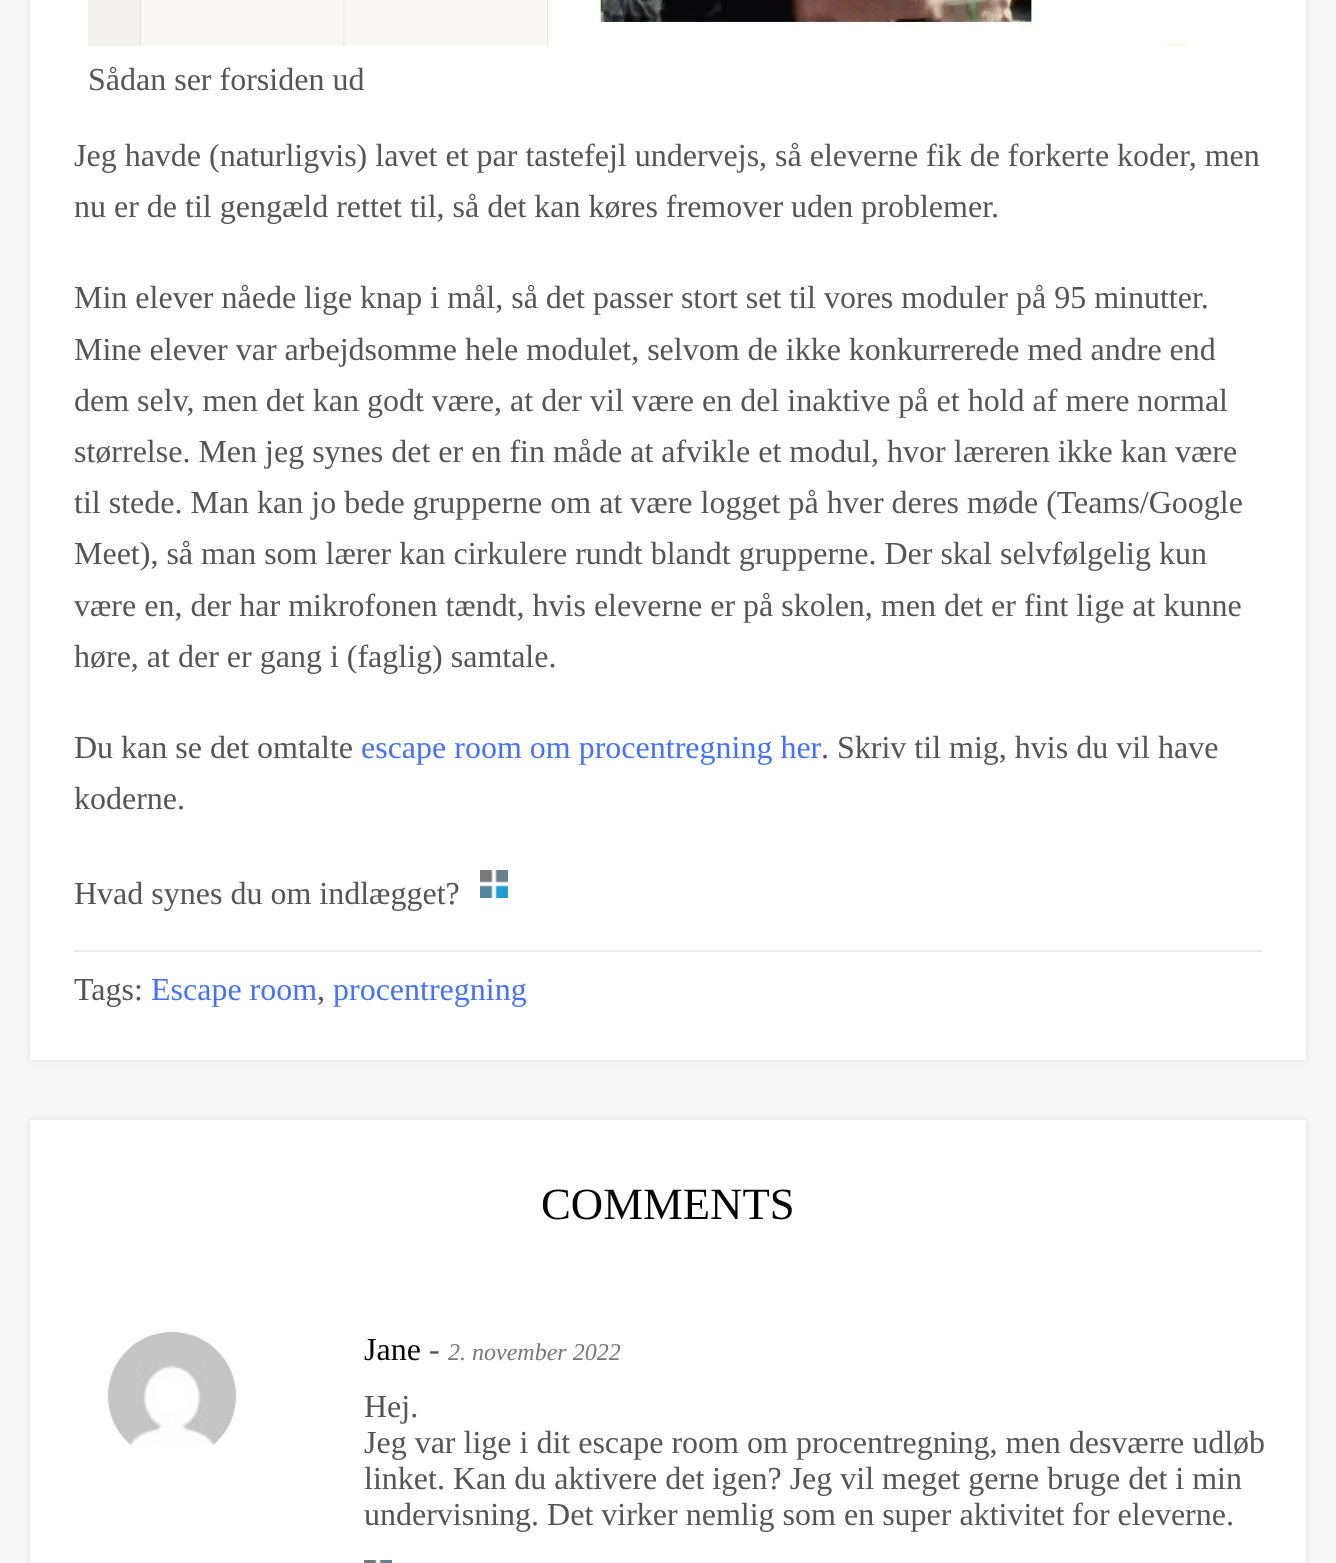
async function draw(canvas) {
  canvas.width = 1336;
  canvas.height = 1563;
  const ctx = canvas.getContext('2d');
  ctx.miterLimit = 4;
  ctx.fontKerning = 'normal';
  function label(s, x, y, font, color) {
    ctx.font = font;
    ctx.fillStyle = color;
    ctx.fillText(s, x, y);
  }
  function rect(x, y, w, h, color) {
    ctx.fillStyle = color;
    ctx.fillRect(x, y, w, h);
  }
  async function image(src, x, y, w, h) {
    const img = new Image();
    img.src = src;
    await img.decode();
    ctx.drawImage(img, x, y, w, h);
  }

  rect(0, 0, 1336, 1563, '#f6f6f6');
  ctx.fillStyle = '#e1dede';
  ctx.filter = 'blur(3px)';
  ctx.beginPath();
  ctx.rect(30, -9, 1276, 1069);
  ctx.fill();
  ctx.filter = 'none';
  rect(30, 0, 1276, 1060, '#fff');
  await image('assets/img1.png', 88, 0, 1098, 46);
  label('Sådan ser forsiden ud', 88, 90, '32px Liberation Serif', '#555');
  label('Jeg havde (naturligvis) lavet et par tastefejl undervejs, så eleverne fik de forkerte koder, men', 74, 166, '32px Liberation Serif', '#555');
  label('nu er de til gengæld rettet til, så det kan køres fremover uden problemer.', 74, 217, '32px Liberation Serif', '#555');
  label('Min elever nåede lige knap i mål, så det passer stort set til vores moduler på 95 minutter.', 74, 308, '32px Liberation Serif', '#555');
  label('Mine elever var arbejdsomme hele modulet, selvom de ikke konkurrerede med andre end', 74, 360, '32px Liberation Serif', '#555');
  label('dem selv, men det kan godt være, at der vil være en del inaktive på et hold af mere normal', 74, 411, '32px Liberation Serif', '#555');
  label('størrelse. Men jeg synes det er en fin måde at afvikle et modul, hvor læreren ikke kan være', 74, 462, '32px Liberation Serif', '#555');
  label('til stede. Man kan jo bede grupperne om at være logget på hver deres møde (Teams/Google', 74, 513, '32px Liberation Serif', '#555');
  label('Meet), så man som lærer kan cirkulere rundt blandt grupperne. Der skal selvfølgelig kun', 74, 564, '32px Liberation Serif', '#555');
  label('være en, der har mikrofonen tændt, hvis eleverne er på skolen, men det er fint lige at kunne', 74, 616, '32px Liberation Serif', '#555');
  label('høre, at der er gang i (faglig) samtale.', 74, 667, '32px Liberation Serif', '#555');
  label('Du kan se det omtalte', 74, 758, '32px Liberation Serif', '#555');
  label('escape room om procentregning her', 361, 758, '32px Liberation Serif', '#4671fb');
  label('. Skriv til mig, hvis du vil have', 821, 758, '32px Liberation Serif', '#555');
  label('koderne.', 74, 809, '32px Liberation Serif', '#555');
  label('Hvad synes du om indlægget?', 74, 904, '32px Liberation Serif', '#555');
  await image('assets/img2.png', 480, 870, 28, 28);
  rect(74, 950, 1188, 2, '#ececec');
  label('Tags:', 74, 1000, '32px Liberation Serif', '#555');
  label('Escape room', 151, 1000, '32px Liberation Serif', '#4671fb');
  label(',', 317, 1000, '32px Liberation Serif', '#555');
  label('procentregning', 333, 1000, '32px Liberation Serif', '#4671fb');
  ctx.fillStyle = '#e1dede';
  ctx.filter = 'blur(3px)';
  ctx.beginPath();
  ctx.rect(30, 1120, 1276, 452);
  ctx.fill();
  ctx.filter = 'none';
  rect(30, 1120, 1276, 443, '#fff');
  label('COMMENTS', 541, 1219, '44.75px Liberation Serif', '#060606');
  await image('assets/img3.png', 108, 1332, 128, 114);
  label('Jane', 364, 1360, '32px Liberation Serif', '#060606');
  label('-', 429, 1360, '32px Liberation Serif', '#555');
  label('2. november 2022', 448, 1360, 'italic 24px Liberation Serif', '#777');
  label('Hej.', 364, 1417, '32px Liberation Serif', '#555');
  label('Jeg var lige i dit escape room om procentregning, men desværre udløb', 364, 1453, '32px Liberation Serif', '#555');
  label('linket. Kan du aktivere det igen? Jeg vil meget gerne bruge det i min', 364, 1489, '32px Liberation Serif', '#555');
  label('undervisning. Det virker nemlig som en super aktivitet for eleverne.', 364, 1525, '32px Liberation Serif', '#555');
  await image('assets/img4.png', 364, 1560, 28, 3);
}

draw(document.querySelector('canvas'));
